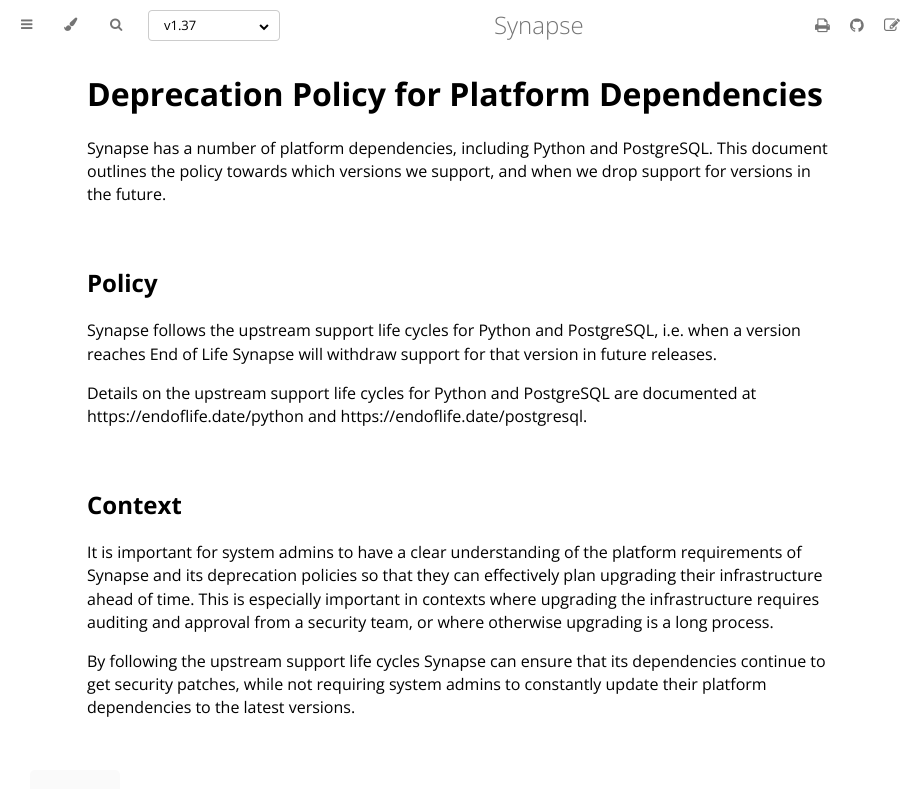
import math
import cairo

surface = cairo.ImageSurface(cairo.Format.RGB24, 923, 789)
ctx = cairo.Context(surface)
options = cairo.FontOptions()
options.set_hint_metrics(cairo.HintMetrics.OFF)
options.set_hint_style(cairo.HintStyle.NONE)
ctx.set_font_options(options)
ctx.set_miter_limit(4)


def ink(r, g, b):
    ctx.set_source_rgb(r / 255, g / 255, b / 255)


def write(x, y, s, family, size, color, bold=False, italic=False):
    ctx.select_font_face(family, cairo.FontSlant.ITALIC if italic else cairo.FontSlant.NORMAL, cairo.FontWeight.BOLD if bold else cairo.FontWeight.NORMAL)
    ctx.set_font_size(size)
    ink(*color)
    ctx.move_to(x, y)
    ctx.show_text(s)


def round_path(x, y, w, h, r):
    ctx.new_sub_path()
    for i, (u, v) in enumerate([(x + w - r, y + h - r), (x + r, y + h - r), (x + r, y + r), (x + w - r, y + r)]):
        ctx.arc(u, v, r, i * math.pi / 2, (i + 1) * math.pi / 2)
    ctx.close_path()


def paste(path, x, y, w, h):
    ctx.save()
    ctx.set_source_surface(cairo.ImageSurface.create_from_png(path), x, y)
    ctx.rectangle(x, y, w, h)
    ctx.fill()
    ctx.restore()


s1 = dict(family="Open Sans", size=13, color=(0, 0, 0))
s2 = dict(family="Open Sans Light", size=24, color=(116, 116, 116))
s3 = dict(family="Open Sans", size=32, color=(0, 0, 0), bold=True)
s4 = dict(family="Open Sans", size=16, color=(0, 0, 0))
s5 = dict(family="Open Sans", size=24, color=(0, 0, 0), bold=True)

ink(255, 255, 255)
ctx.paint()
paste("pic1.png", 21, 19, 12, 10)
paste("pic2.png", 64, 17, 14, 14)
paste("pic3.png", 110, 18, 13, 13)
round_path(148.5, 10.5, 131, 30, 3.5)
ink(204, 204, 204)
ctx.set_line_width(1)
ctx.stroke()
write(164, 30, "v1.37", **s1)
paste("pic4.png", 259, 24, 10, 7)
write(494, 34, "Synapse", **s2)
paste("pic5.png", 815, 18, 15, 15)
paste("pic6.png", 850, 18, 14, 14)
paste("pic7.png", 884, 18, 16, 13)
write(87, 106, "Deprecation Policy for Platform Dependencies", **s3)
write(87, 154, "Synapse has a number of platform dependencies, including Python and PostgreSQL. This document", **s4)
write(87, 177, "outlines the policy towards which versions we support, and when we drop support for versions in", **s4)
write(87, 200, "the future.", **s4)
write(87, 292, "Policy", **s5)
write(87, 336, "Synapse follows the upstream support life cycles for Python and PostgreSQL, i.e. when a version", **s4)
write(87, 360, "reaches End of Life Synapse will withdraw support for that version in future releases.", **s4)
write(87, 399, "Details on the upstream support life cycles for Python and PostgreSQL are documented at", **s4)
write(87, 422, "https://endoflife.date/python and https://endoflife.date/postgresql.", **s4)
write(87, 514, "Context", **s5)
write(87, 558, "It is important for system admins to have a clear understanding of the platform requirements of", **s4)
write(87, 581, "Synapse and its deprecation policies so that they can effectively plan upgrading their infrastructure", **s4)
write(87, 605, "ahead of time. This is especially important in contexts where upgrading the infrastructure requires", **s4)
write(87, 628, "auditing and approval from a security team, or where otherwise upgrading is a long process.", **s4)
write(87, 667, "By following the upstream support life cycles Synapse can ensure that its dependencies continue to", **s4)
write(87, 690, "get security patches, while not requiring system admins to constantly update their platform", **s4)
write(87, 713, "dependencies to the latest versions.", **s4)
ink(250, 250, 250)
round_path(30, 770, 90, 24, 5)
ctx.fill()
surface.write_to_png("screenshot.png")
